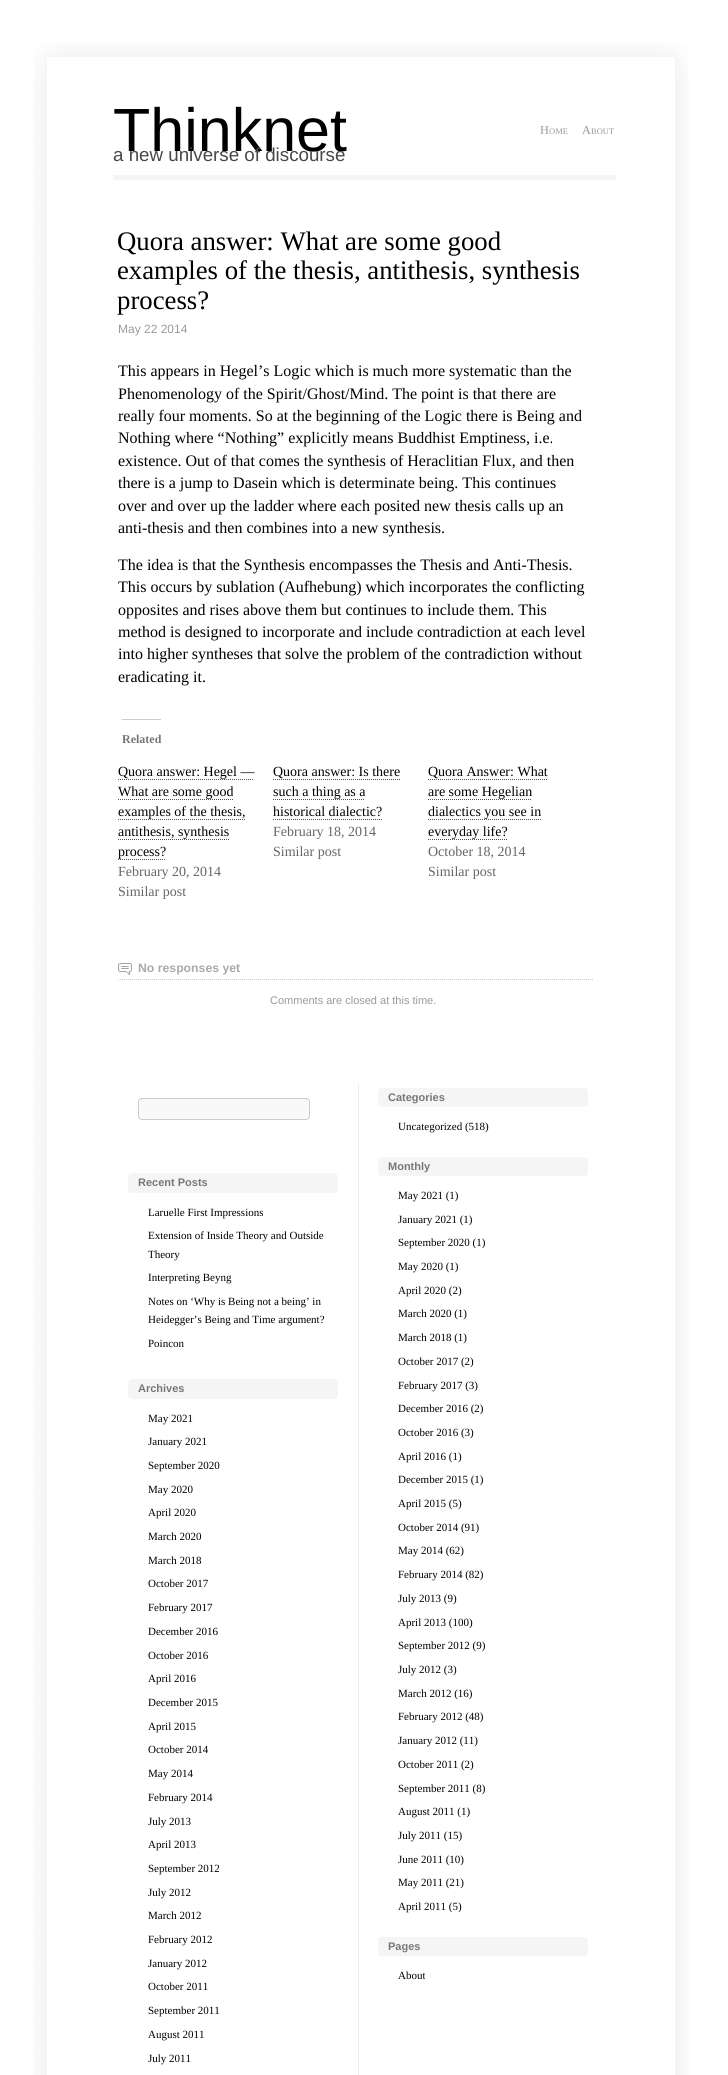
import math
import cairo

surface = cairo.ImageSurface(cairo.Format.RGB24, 728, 2075)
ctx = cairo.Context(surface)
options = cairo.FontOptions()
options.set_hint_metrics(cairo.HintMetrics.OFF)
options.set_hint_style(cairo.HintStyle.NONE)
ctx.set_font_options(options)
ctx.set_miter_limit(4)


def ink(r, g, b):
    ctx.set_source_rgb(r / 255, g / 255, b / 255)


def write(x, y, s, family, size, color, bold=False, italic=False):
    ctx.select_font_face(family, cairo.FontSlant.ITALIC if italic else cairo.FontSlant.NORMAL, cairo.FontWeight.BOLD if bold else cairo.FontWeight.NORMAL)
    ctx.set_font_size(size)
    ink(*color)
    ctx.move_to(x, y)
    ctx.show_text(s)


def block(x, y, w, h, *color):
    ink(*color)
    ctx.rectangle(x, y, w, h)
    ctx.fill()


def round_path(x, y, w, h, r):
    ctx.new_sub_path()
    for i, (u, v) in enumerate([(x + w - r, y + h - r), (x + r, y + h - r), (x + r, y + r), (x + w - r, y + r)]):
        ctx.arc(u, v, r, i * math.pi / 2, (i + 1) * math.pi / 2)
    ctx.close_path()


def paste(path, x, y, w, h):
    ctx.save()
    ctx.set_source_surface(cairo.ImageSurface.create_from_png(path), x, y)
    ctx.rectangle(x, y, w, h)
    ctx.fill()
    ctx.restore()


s1 = dict(family="Liberation Sans", size=61, color=(0, 0, 0))
s2 = dict(family="Liberation Sans", size=18.75, color=(72, 72, 72))
s3 = dict(family="Liberation Serif", size=12.25, color=(153, 153, 153))
s4 = dict(family="Liberation Serif", size=8.5, color=(153, 153, 153))
s5 = dict(family="Liberation Serif", size=26.75, color=(0, 0, 0))
s6 = dict(family="Liberation Sans", size=12, color=(153, 153, 153))
s7 = dict(family="Liberation Serif", size=16, color=(0, 0, 0))
s8 = dict(family="Liberation Serif", size=12, color=(119, 119, 119), bold=True)
s9 = dict(family="Liberation Serif", size=14, color=(0, 0, 0))
s10 = dict(family="Liberation Serif", size=14, color=(102, 102, 102))
s11 = dict(family="Liberation Sans", size=12.25, color=(170, 170, 170), bold=True)
s12 = dict(family="Liberation Sans", size=11, color=(153, 153, 153))
s13 = dict(family="Liberation Sans", size=11, color=(119, 119, 119), bold=True)
s14 = dict(family="Liberation Serif", size=11, color=(0, 0, 0))

ink(255, 255, 255)
ctx.paint()
paste("pic1.png", 34, 43, 654, 37)
paste("pic2.png", 33, 80, 656, 115)
write(113, 151, "Thinknet", **s1)
write(113, 161, "a new universe of discourse", **s2)
write(540, 134, "H", **s3)
write(549, 134, "OME", **s4)
write(582, 134, "A", **s3)
write(591, 134, "BOUT", **s4)
block(113, 175, 503, 5, 245, 245, 245)
paste("pic3.png", 33, 195, 656, 1880)
write(117, 250, "Quora answer: What are some good", **s5)
write(117, 279, "examples of the thesis, antithesis, synthesis", **s5)
write(117, 309, "process?", **s5)
write(118, 333, "May 22 2014", **s6)
write(118, 376, "This appears in Hegel’s Logic which is much more systematic than the", **s7)
write(118, 399, "Phenomenology of the Spirit/Ghost/Mind. The point is that there are", **s7)
write(118, 421, "really four moments. So at the beginning of the Logic there is Being and", **s7)
write(118, 443, "Nothing where “Nothing” explicitly means Buddhist Emptiness, i.e.", **s7)
write(118, 466, "existence. Out of that comes the synthesis of Heraclitian Flux, and then", **s7)
write(118, 488, "there is a jump to Dasein which is determinate being. This continues", **s7)
write(118, 511, "over and over up the ladder where each posited new thesis calls up an", **s7)
write(118, 533, "anti-thesis and then combines into a new synthesis.", **s7)
write(118, 570, "The idea is that the Synthesis encompasses the Thesis and Anti-Thesis.", **s7)
write(118, 592, "This occurs by sublation (Aufhebung) which incorporates the conflicting", **s7)
write(118, 615, "opposites and rises above them but continues to include them. This", **s7)
write(118, 637, "method is designed to incorporate and include contradiction at each level", **s7)
write(118, 659, "into higher syntheses that solve the problem of the contradiction without", **s7)
write(118, 682, "eradicating it.", **s7)
block(122, 719, 39, 1, 204, 204, 204)
write(122, 743, "Related", **s8)
write(118, 776, "Quora answer: Hegel —", **s9)
ctx.new_path()
ctx.move_to(118, 779.5)
ctx.line_to(254, 779.5)
ink(239, 0, 80)
ctx.set_line_width(1)
ctx.set_dash([1, 1])
ctx.stroke()
write(118, 796, "What are some good", **s9)
ctx.new_path()
ctx.move_to(118, 799.5)
ctx.line_to(233, 799.5)
ink(239, 0, 80)
ctx.stroke()
write(118, 816, "examples of the thesis,", **s9)
ctx.new_path()
ctx.move_to(118, 819.5)
ctx.line_to(245, 819.5)
ink(239, 0, 80)
ctx.stroke()
write(118, 836, "antithesis, synthesis", **s9)
ctx.new_path()
ctx.move_to(118, 839.5)
ctx.line_to(229, 839.5)
ink(239, 0, 80)
ctx.stroke()
write(118, 856, "process?", **s9)
ctx.new_path()
ctx.move_to(118, 859.5)
ctx.line_to(166, 859.5)
ink(239, 0, 80)
ctx.stroke()
write(118, 876, "February 20, 2014", **s10)
write(118, 896, "Similar post", **s10)
write(273, 776, "Quora answer: Is there", **s9)
ctx.new_path()
ctx.move_to(273, 779.5)
ctx.line_to(400, 779.5)
ink(239, 0, 80)
ctx.stroke()
write(273, 796, "such a thing as a", **s9)
ctx.new_path()
ctx.move_to(273, 799.5)
ctx.line_to(365, 799.5)
ink(239, 0, 80)
ctx.stroke()
write(273, 816, "historical dialectic?", **s9)
ctx.new_path()
ctx.move_to(273, 819.5)
ctx.line_to(382, 819.5)
ink(239, 0, 80)
ctx.stroke()
write(273, 836, "February 18, 2014", **s10)
write(273, 856, "Similar post", **s10)
write(428, 776, "Quora Answer: What", **s9)
ctx.new_path()
ctx.move_to(428, 779.5)
ctx.line_to(547, 779.5)
ink(239, 0, 80)
ctx.stroke()
write(428, 796, "are some Hegelian", **s9)
ctx.new_path()
ctx.move_to(428, 799.5)
ctx.line_to(532, 799.5)
ink(239, 0, 80)
ctx.stroke()
write(428, 816, "dialectics you see in", **s9)
ctx.new_path()
ctx.move_to(428, 819.5)
ctx.line_to(541, 819.5)
ink(239, 0, 80)
ctx.stroke()
write(428, 836, "everyday life?", **s9)
ctx.new_path()
ctx.move_to(428, 839.5)
ctx.line_to(507, 839.5)
ink(239, 0, 80)
ctx.stroke()
write(428, 856, "October 18, 2014", **s10)
write(428, 876, "Similar post", **s10)
paste("pic4.png", 118, 963, 14, 12)
ctx.new_path()
ctx.move_to(118, 979.5)
ctx.line_to(593, 979.5)
ink(204, 204, 204)
ctx.stroke()
write(138, 972, "No responses yet", **s11)
write(270, 1004, "Comments are closed at this time.", **s12)
block(358, 1083, 1, 992, 238, 238, 238)
ink(249, 249, 249)
round_path(138.5, 1098.5, 171, 21, 3.5)
ctx.fill_preserve()
ink(204, 204, 204)
ctx.set_dash([])
ctx.stroke()
ink(245, 245, 245)
round_path(128, 1173, 210, 20, 4)
ctx.fill()
write(138, 1186, "Recent Posts", **s13)
write(148, 1216, "Laruelle First Impressions", **s14)
write(148, 1239, "Extension of Inside Theory and Outside", **s14)
write(148, 1258, "Theory", **s14)
write(148, 1281, "Interpreting Beyng", **s14)
write(148, 1305, "Notes on ‘Why is Being not a being’ in", **s14)
write(148, 1323, "Heidegger’s Being and Time argument?", **s14)
write(148, 1347, "Poincon", **s14)
ink(245, 245, 245)
round_path(128, 1379, 210, 20, 4)
ctx.fill()
write(138, 1392, "Archives", **s13)
write(148, 1422, "May 2021", **s14)
write(148, 1445, "January 2021", **s14)
write(148, 1469, "September 2020", **s14)
write(148, 1493, "May 2020", **s14)
write(148, 1516, "April 2020", **s14)
write(148, 1540, "March 2020", **s14)
write(148, 1564, "March 2018", **s14)
write(148, 1587, "October 2017", **s14)
write(148, 1611, "February 2017", **s14)
write(148, 1635, "December 2016", **s14)
write(148, 1659, "October 2016", **s14)
write(148, 1682, "April 2016", **s14)
write(148, 1706, "December 2015", **s14)
write(148, 1730, "April 2015", **s14)
write(148, 1753, "October 2014", **s14)
write(148, 1777, "May 2014", **s14)
write(148, 1801, "February 2014", **s14)
write(148, 1825, "July 2013", **s14)
write(148, 1848, "April 2013", **s14)
write(148, 1872, "September 2012", **s14)
write(148, 1896, "July 2012", **s14)
write(148, 1919, "March 2012", **s14)
write(148, 1943, "February 2012", **s14)
write(148, 1967, "January 2012", **s14)
write(148, 1990, "October 2011", **s14)
write(148, 2014, "September 2011", **s14)
write(148, 2038, "August 2011", **s14)
write(148, 2062, "July 2011", **s14)
ink(245, 245, 245)
round_path(378, 1088, 210, 19, 4)
ctx.fill()
write(388, 1101, "Categories", **s13)
write(398, 1130, "Uncategorized (518)", **s14)
ink(245, 245, 245)
round_path(378, 1157, 210, 19, 4)
ctx.fill()
write(388, 1170, "Monthly", **s13)
write(398, 1199, "May 2021 (1)", **s14)
write(398, 1223, "January 2021 (1)", **s14)
write(398, 1246, "September 2020 (1)", **s14)
write(398, 1270, "May 2020 (1)", **s14)
write(398, 1294, "April 2020 (2)", **s14)
write(398, 1317, "March 2020 (1)", **s14)
write(398, 1341, "March 2018 (1)", **s14)
write(398, 1365, "October 2017 (2)", **s14)
write(398, 1389, "February 2017 (3)", **s14)
write(398, 1412, "December 2016 (2)", **s14)
write(398, 1436, "October 2016 (3)", **s14)
write(398, 1460, "April 2016 (1)", **s14)
write(398, 1483, "December 2015 (1)", **s14)
write(398, 1507, "April 2015 (5)", **s14)
write(398, 1531, "October 2014 (91)", **s14)
write(398, 1554, "May 2014 (62)", **s14)
write(398, 1578, "February 2014 (82)", **s14)
write(398, 1602, "July 2013 (9)", **s14)
write(398, 1626, "April 2013 (100)", **s14)
write(398, 1649, "September 2012 (9)", **s14)
write(398, 1673, "July 2012 (3)", **s14)
write(398, 1697, "March 2012 (16)", **s14)
write(398, 1720, "February 2012 (48)", **s14)
write(398, 1744, "January 2012 (11)", **s14)
write(398, 1768, "October 2011 (2)", **s14)
write(398, 1792, "September 2011 (8)", **s14)
write(398, 1815, "August 2011 (1)", **s14)
write(398, 1839, "July 2011 (15)", **s14)
write(398, 1863, "June 2011 (10)", **s14)
write(398, 1886, "May 2011 (21)", **s14)
write(398, 1910, "April 2011 (5)", **s14)
ink(245, 245, 245)
round_path(378, 1937, 210, 19, 4)
ctx.fill()
write(388, 1950, "Pages", **s13)
write(398, 1979, "About", **s14)
surface.write_to_png("screenshot.png")
